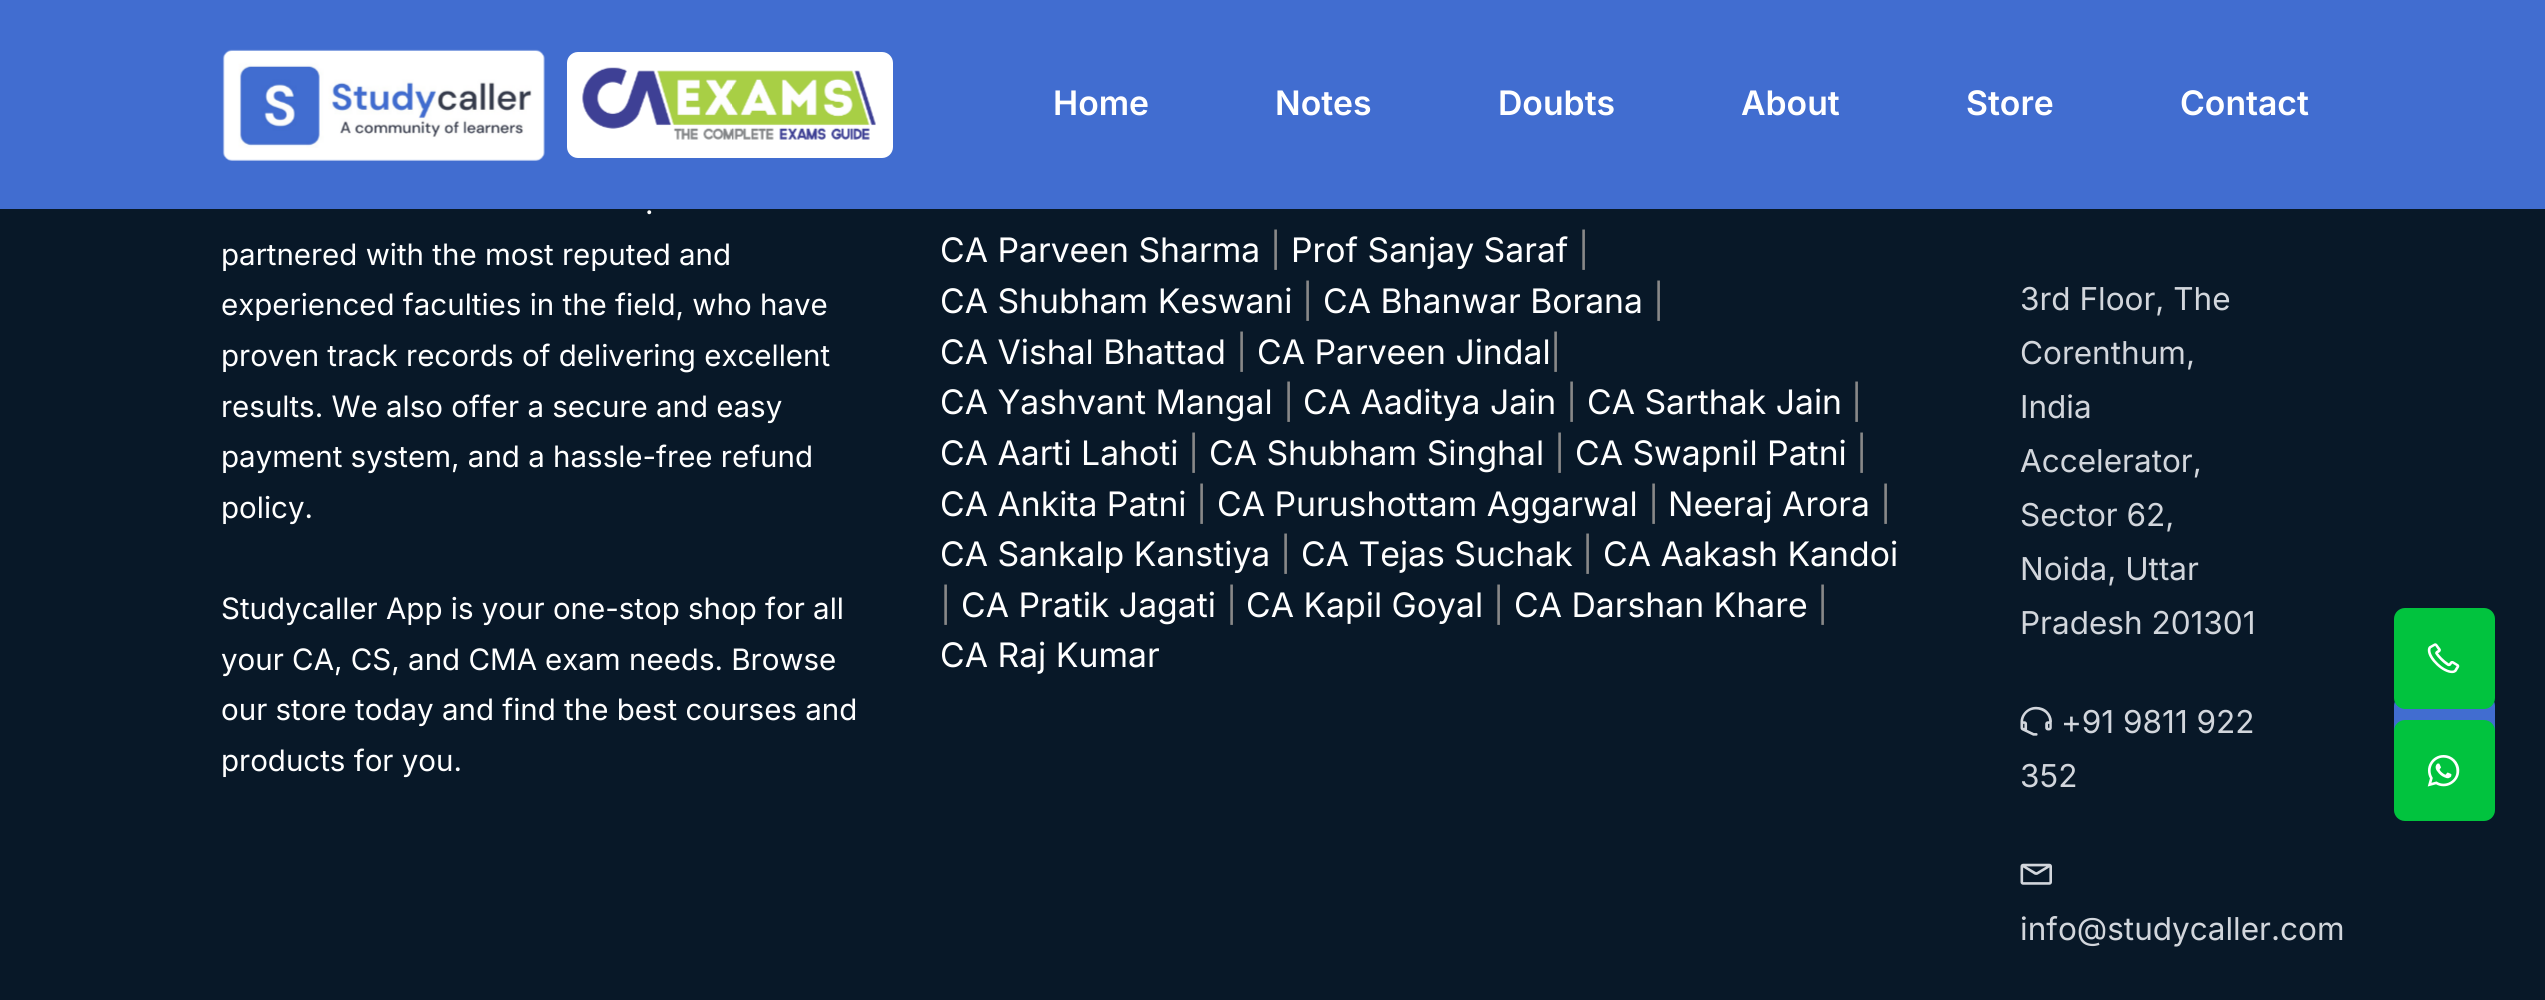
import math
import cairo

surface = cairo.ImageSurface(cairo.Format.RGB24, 2545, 1000)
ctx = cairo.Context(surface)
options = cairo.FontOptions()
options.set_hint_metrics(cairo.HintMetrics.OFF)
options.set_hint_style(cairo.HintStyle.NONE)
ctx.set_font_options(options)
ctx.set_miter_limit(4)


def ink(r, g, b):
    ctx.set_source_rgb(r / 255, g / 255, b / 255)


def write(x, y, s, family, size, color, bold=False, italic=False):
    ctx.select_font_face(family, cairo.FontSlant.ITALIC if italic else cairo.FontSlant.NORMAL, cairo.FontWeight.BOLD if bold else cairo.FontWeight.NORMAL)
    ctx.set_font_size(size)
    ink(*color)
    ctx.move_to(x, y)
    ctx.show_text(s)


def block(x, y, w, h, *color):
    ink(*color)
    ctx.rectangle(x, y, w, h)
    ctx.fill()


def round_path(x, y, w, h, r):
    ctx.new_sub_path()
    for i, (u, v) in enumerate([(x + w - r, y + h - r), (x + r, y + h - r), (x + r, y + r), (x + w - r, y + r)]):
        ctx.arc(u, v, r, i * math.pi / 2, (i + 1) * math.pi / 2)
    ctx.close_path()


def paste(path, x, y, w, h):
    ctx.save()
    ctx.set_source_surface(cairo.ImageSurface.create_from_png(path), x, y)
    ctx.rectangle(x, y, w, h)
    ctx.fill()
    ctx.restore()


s1 = dict(family="Inter SemiBold", size=33.75, color=(255, 255, 255))
s2 = dict(family="Inter", size=29.5, color=(255, 255, 255))
s3 = dict(family="Inter", size=33.75, color=(255, 255, 255))
s4 = dict(family="Inter", size=33.75, color=(136, 136, 136))
s5 = dict(family="Inter", size=31.5, color=(210, 214, 220))

ink(8, 24, 40)
ctx.paint()
block(0, 0, 2545, 209, 65, 109, 208)
paste("pic1.png", 222, 49, 323, 112)
ink(255, 255, 255)
round_path(567, 52, 326, 106, 11)
ctx.fill()
paste("pic2.png", 582, 67, 294, 73)
write(1053, 115, "Home", **s1)
write(1275, 115, "Notes", **s1)
write(1498, 115, "Doubts", **s1)
write(1741, 115, "About", **s1)
write(1966, 115, "Store", **s1)
write(2180, 115, "Contact", **s1)
write(645, 214, ".", **s2)
write(221, 265, "partnered with the most reputed and", **s2)
write(221, 315, "experienced faculties in the field, who have", **s2)
write(221, 366, "proven track records of delivering excellent", **s2)
write(221, 417, "results. We also offer a secure and easy", **s2)
write(221, 467, "payment system, and a hassle-free refund", **s2)
write(221, 518, "policy.", **s2)
write(221, 619, "Studycaller App is your one-stop shop for all", **s2)
write(221, 670, "your CA, CS, and CMA", **s2)
write(545, 670, "exam needs. Browse", **s2)
write(221, 720, "our store today and find the best courses and", **s2)
write(221, 771, "products for you.", **s2)
write(940, 262, "CA Parveen Sharma", **s3)
write(1270, 262, "|", **s4)
write(1291, 262, "Prof Sanjay Saraf", **s3)
write(1578, 262, "|", **s4)
write(940, 313, "CA Shubham Keswani", **s3)
write(1302, 313, "|", **s4)
write(1323, 313, "CA Bhanwar Borana", **s3)
write(1653, 313, "|", **s4)
write(940, 364, "CA Vishal Bhattad", **s3)
write(1236, 364, "|", **s4)
write(1257, 364, "CA Parveen Jindal", **s3)
write(1550, 364, "|", **s4)
write(940, 414, "CA Yashvant Mangal", **s3)
write(1283, 414, "|", **s4)
write(1303, 414, "CA Aaditya Jain", **s3)
write(1566, 414, "|", **s4)
write(1587, 414, "CA Sarthak Jain", **s3)
write(1851, 414, "|", **s4)
write(940, 465, "CA Aarti Lahoti", **s3)
write(1188, 465, "|", **s4)
write(1209, 465, "CA Shubham Singhal", **s3)
write(1554, 465, "|", **s4)
write(1575, 465, "CA Swapnil Patni", **s3)
write(1856, 465, "|", **s4)
write(940, 516, "CA Ankita Patni", **s3)
write(1196, 516, "|", **s4)
write(1217, 516, "CA Purushottam Aggarwal", **s3)
write(1648, 516, "|", **s4)
write(1668, 516, "Neeraj Arora", **s3)
write(1880, 516, "|", **s4)
write(940, 566, "CA Sankalp Kanstiya", **s3)
write(1280, 566, "|", **s4)
write(1301, 566, "CA Tejas Suchak", **s3)
write(1582, 566, "|", **s4)
write(1603, 566, "CA Aakash Kandoi", **s3)
write(940, 617, "|", **s4)
write(961, 617, "CA Pratik Jagati", **s3)
write(1226, 617, "|", **s4)
write(1246, 617, "CA Kapil Goyal", **s3)
write(1493, 617, "|", **s4)
write(1514, 617, "CA Darshan Khare", **s3)
write(1817, 617, "|", **s4)
write(940, 667, "CA Raj Kumar", **s3)
write(2020, 310, "3rd Floor, The", **s5)
write(2020, 364, "Corenthum,", **s5)
write(2020, 418, "India", **s5)
write(2020, 472, "Accelerator,", **s5)
write(2020, 526, "Sector 62,", **s5)
write(2020, 580, "Noida, Uttar", **s5)
write(2020, 634, "Pradesh 201301", **s5)
paste("pic3.png", 2020, 706, 32, 30)
write(2061, 733, "+91 9811 922", **s5)
write(2020, 787, "352", **s5)
paste("pic4.png", 2020, 863, 32, 22)
write(2020, 940, "info@studycaller.com", **s5)
ink(65, 109, 208)
round_path(2394, 695, 101, 102, 11)
ctx.fill()
ink(1, 195, 62)
round_path(2394, 608, 101, 101, 11)
ctx.fill()
paste("pic5.png", 2427, 643, 33, 31)
round_path(2394, 720, 101, 101, 11)
ctx.fill()
paste("pic6.png", 2427, 755, 33, 32)
surface.write_to_png("screenshot.png")
